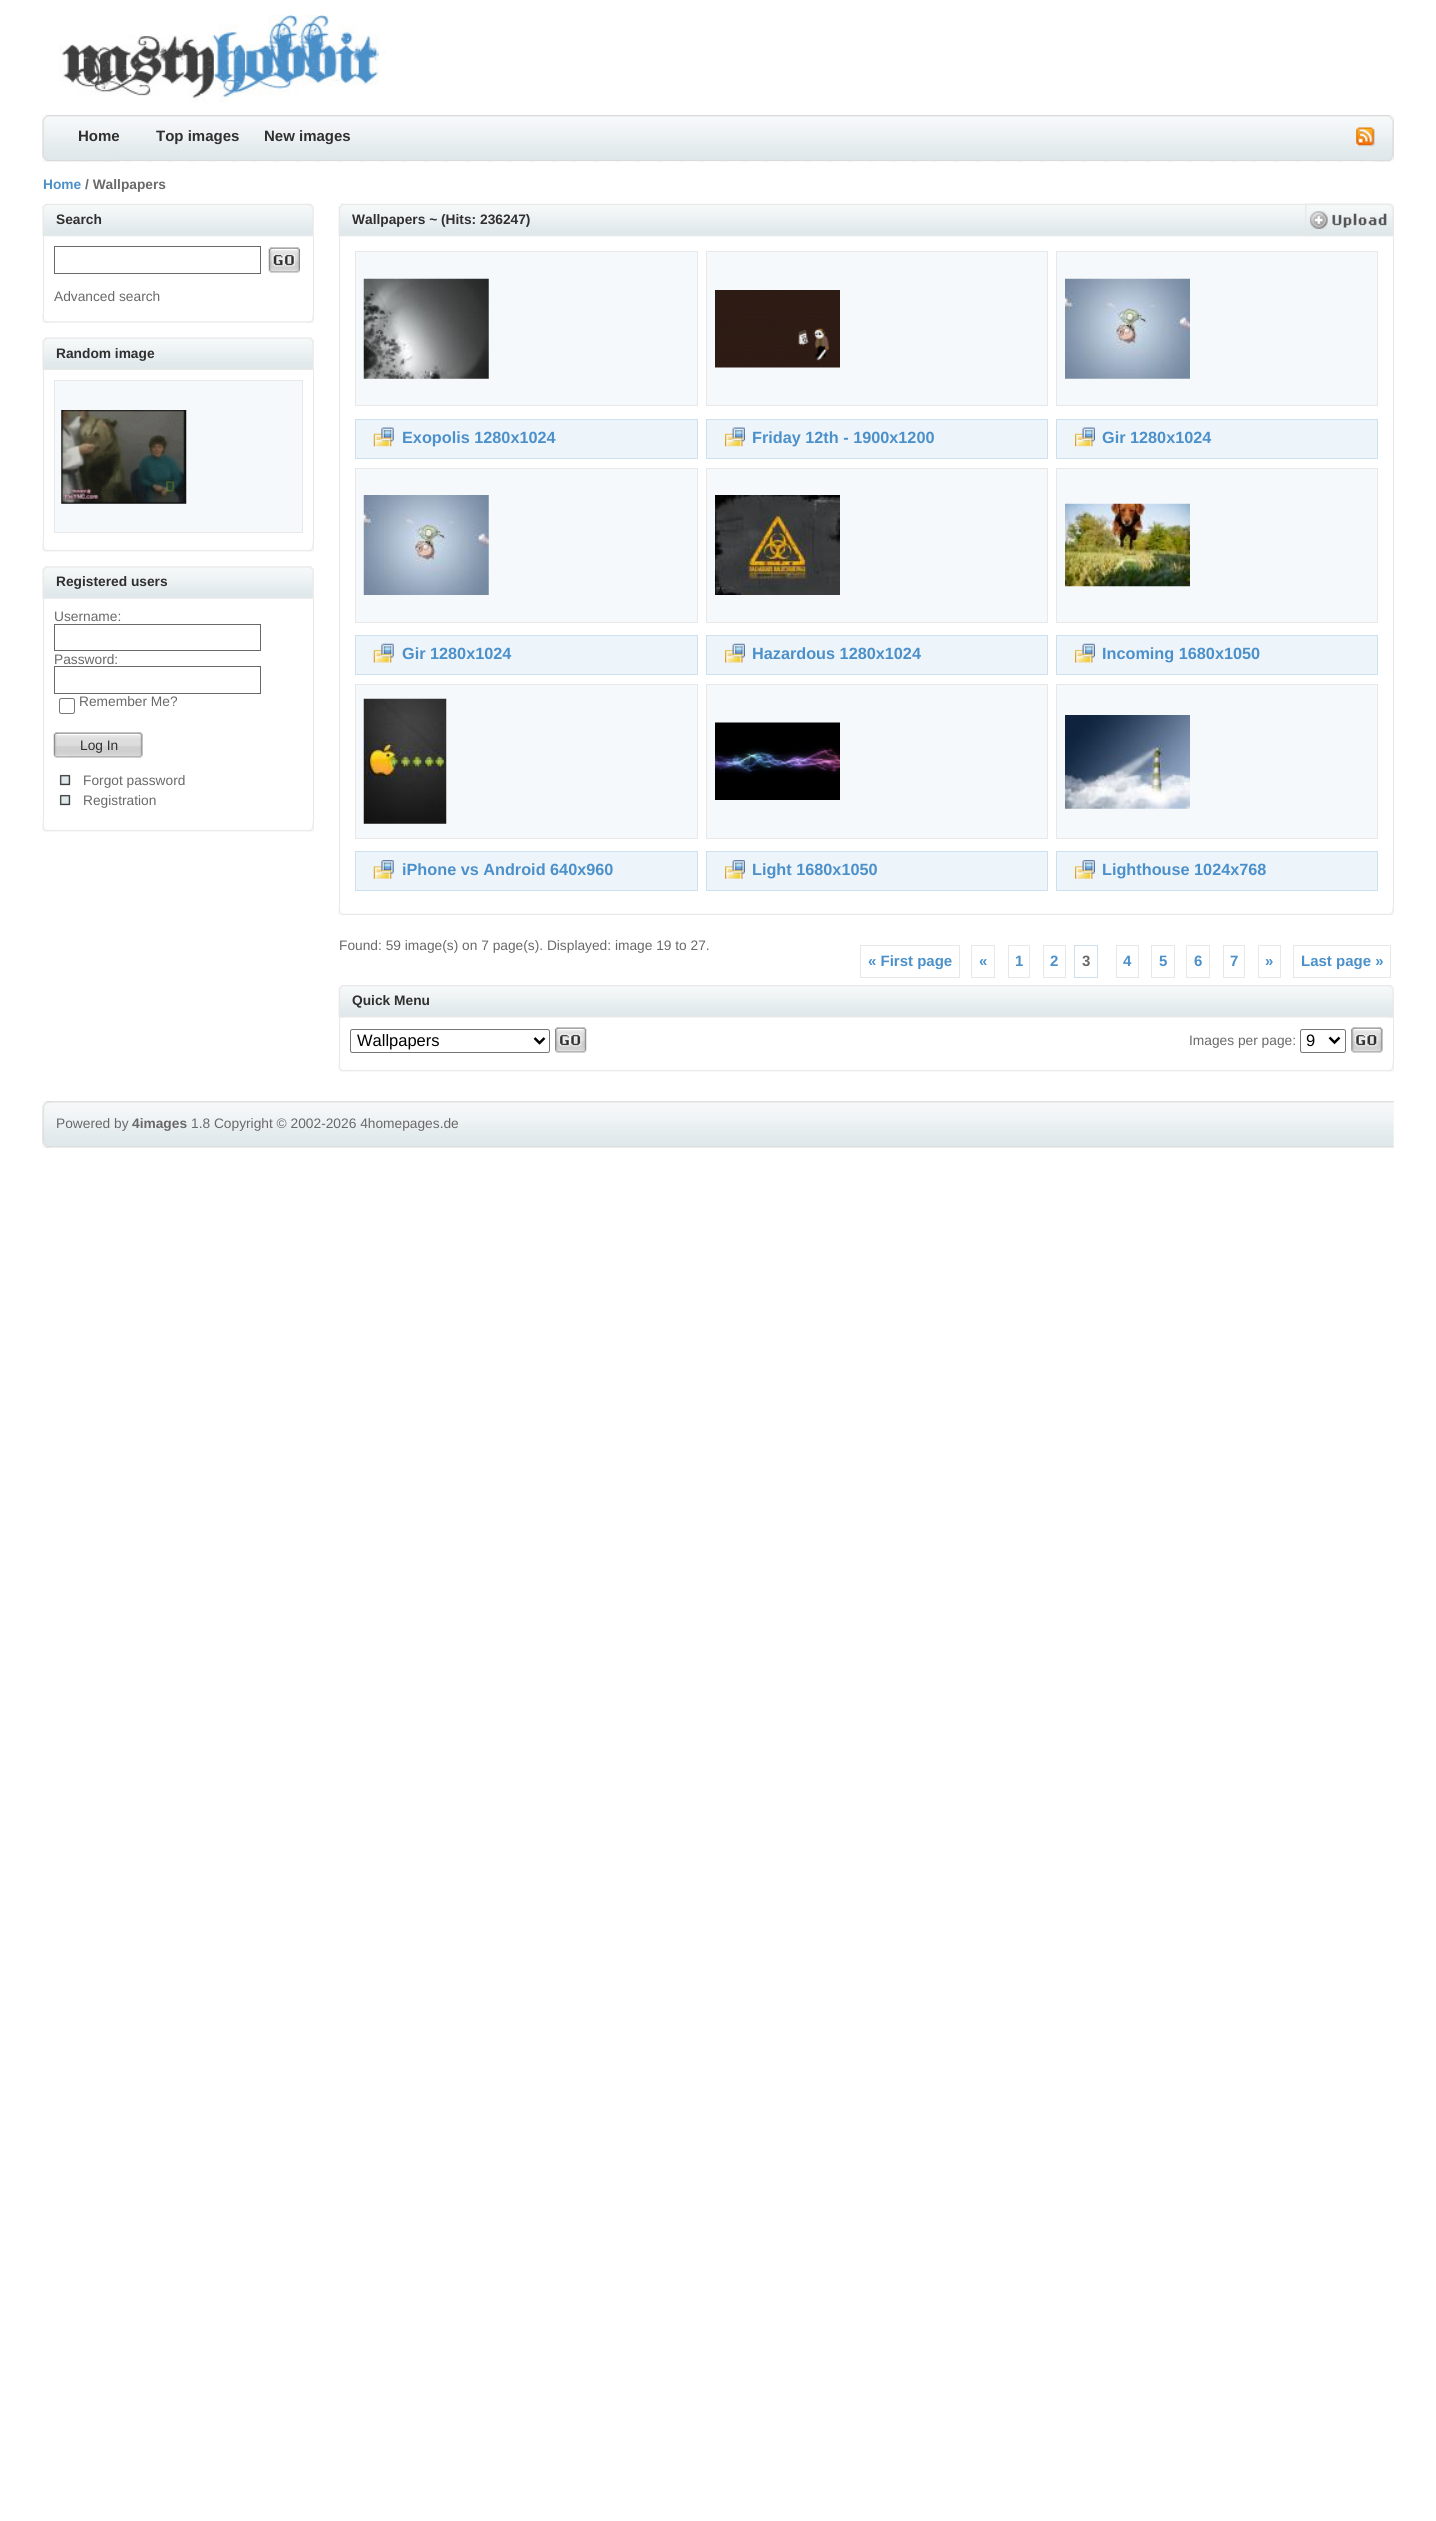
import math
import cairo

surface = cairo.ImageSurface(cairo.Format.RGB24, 1436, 2521)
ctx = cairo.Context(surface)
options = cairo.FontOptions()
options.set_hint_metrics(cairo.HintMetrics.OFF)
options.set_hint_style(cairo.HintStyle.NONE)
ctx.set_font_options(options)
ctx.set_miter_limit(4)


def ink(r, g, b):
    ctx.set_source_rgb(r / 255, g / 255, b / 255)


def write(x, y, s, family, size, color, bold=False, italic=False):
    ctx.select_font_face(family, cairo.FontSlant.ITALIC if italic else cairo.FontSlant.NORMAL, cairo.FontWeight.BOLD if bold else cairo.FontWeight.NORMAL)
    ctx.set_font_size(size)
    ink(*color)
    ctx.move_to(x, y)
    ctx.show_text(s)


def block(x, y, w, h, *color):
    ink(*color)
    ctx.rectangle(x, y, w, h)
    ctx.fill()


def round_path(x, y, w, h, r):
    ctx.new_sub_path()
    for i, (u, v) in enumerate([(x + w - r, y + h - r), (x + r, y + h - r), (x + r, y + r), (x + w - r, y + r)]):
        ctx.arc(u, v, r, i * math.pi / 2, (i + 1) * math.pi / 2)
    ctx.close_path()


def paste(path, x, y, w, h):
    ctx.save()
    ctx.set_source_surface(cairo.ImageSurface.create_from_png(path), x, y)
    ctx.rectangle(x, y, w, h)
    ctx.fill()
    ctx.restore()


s1 = dict(family="Liberation Sans", size=15, color=(48, 48, 48), bold=True)
s2 = dict(family="Liberation Sans", size=13.75, color=(76, 144, 202), bold=True)
s3 = dict(family="Liberation Sans", size=13.75, color=(105, 105, 105), bold=True)
s4 = dict(family="Liberation Sans", size=13.75, color=(48, 48, 48), bold=True)
s5 = dict(family="Liberation Sans", size=13.75, color=(105, 105, 105))
s6 = dict(family="Liberation Sans", size=13.75, color=(48, 48, 48))
s7 = dict(family="Liberation Sans", size=16.25, color=(76, 144, 202), bold=True)
s8 = dict(family="Liberation Sans", size=15, color=(76, 144, 202), bold=True)
s9 = dict(family="Liberation Sans", size=15, color=(105, 105, 105), bold=True)
s10 = dict(family="Liberation Sans", size=16.5, color=(0, 0, 0))

ink(255, 255, 255)
ctx.paint()
paste("pic1.png", 59, 15, 326, 88)
paste("pic2.png", 42, 115, 1352, 47)
paste("pic3.png", 42, 115, 77, 47)
write(78, 141, "Home", **s1)
write(156, 141, "Top images", **s1)
write(264, 141, "New images", **s1)
paste("pic4.png", 1372, 115, 22, 47)
paste("pic5.png", 1356, 127, 19, 20)
write(43, 189, "Home", **s2)
write(85, 189, "/ Wallpapers", **s3)
paste("pic6.png", 42, 203, 272, 34)
write(56, 224, "Search", **s4)
block(313, 236, 1, 78, 232, 232, 232)
block(43, 236, 1, 78, 232, 232, 232)
ctx.rectangle(54.5, 246.5, 206, 27)
ink(105, 105, 105)
ctx.set_line_width(1)
ctx.stroke()
paste("pic7.png", 268, 247, 32, 26)
write(54, 301, "Advanced search", **s5)
paste("pic8.png", 42, 313, 272, 10)
paste("pic9.png", 42, 314, 8, 9)
paste("pic10.png", 306, 314, 8, 9)
paste("pic11.png", 42, 337, 272, 33)
write(56, 358, "Random image", **s4)
block(313, 370, 1, 173, 232, 232, 232)
block(43, 370, 1, 173, 232, 232, 232)
ink(245, 249, 252)
ctx.rectangle(54.5, 380.5, 248, 152)
ctx.fill_preserve()
ink(232, 232, 232)
ctx.stroke()
paste("pic12.png", 61, 410, 126, 94)
paste("pic13.png", 42, 542, 272, 10)
paste("pic14.png", 42, 542, 8, 10)
paste("pic15.png", 307, 542, 7, 10)
paste("pic16.png", 42, 566, 272, 33)
write(56, 586, "Registered users", **s4)
block(313, 599, 1, 224, 232, 232, 232)
block(43, 599, 1, 224, 232, 232, 232)
write(54, 621, "Username:", **s5)
ctx.rectangle(54.5, 624.5, 206, 26)
ctx.stroke()
write(54, 664, "Password:", **s5)
ctx.rectangle(54.5, 666.5, 206, 27)
ctx.stroke()
round_path(59.5, 698.5, 15, 15, 2)
ink(118, 118, 118)
ctx.stroke()
write(79, 706, "Remember Me?", **s5)
paste("pic17.png", 53, 732, 90, 26)
write(80, 750, "Log In", **s6)
paste("pic18.png", 59, 774, 12, 12)
write(83, 785, "Forgot password", **s5)
paste("pic18.png", 59, 794, 12, 12)
write(83, 805, "Registration", **s5)
paste("pic13.png", 42, 822, 272, 10)
paste("pic14.png", 42, 822, 8, 10)
paste("pic15.png", 307, 822, 7, 10)
paste("pic19.png", 338, 203, 1056, 34)
paste("pic20.png", 338, 203, 5, 34)
write(352, 224, "Wallpapers ~ (Hits: 236247)", **s4)
paste("pic21.png", 1393, 204, 1, 25)
block(1393, 236, 1, 670, 232, 232, 232)
paste("pic22.png", 1305, 203, 89, 34)
block(339, 236, 1, 670, 232, 232, 232)
ink(245, 249, 252)
ctx.rectangle(355.5, 251.5, 342, 154)
ctx.fill_preserve()
ink(232, 232, 232)
ctx.stroke()
paste("pic23.png", 363, 278, 126, 101)
ink(237, 244, 250)
ctx.rectangle(355.5, 419.5, 342, 39)
ctx.fill_preserve()
ink(205, 224, 240)
ctx.stroke()
paste("pic24.png", 373, 427, 21, 20)
write(402, 443, "Exopolis 1280x1024", **s7)
ink(245, 249, 252)
ctx.rectangle(706.5, 251.5, 341, 154)
ctx.fill_preserve()
ink(232, 232, 232)
ctx.stroke()
paste("pic25.png", 715, 290, 125, 78)
ink(237, 244, 250)
ctx.rectangle(706.5, 419.5, 341, 39)
ctx.fill_preserve()
ink(205, 224, 240)
ctx.stroke()
paste("pic26.png", 725, 427, 20, 20)
write(752, 443, "Friday 12th - 1900x1200", **s7)
ink(245, 249, 252)
ctx.rectangle(1056.5, 251.5, 321, 154)
ctx.fill_preserve()
ink(232, 232, 232)
ctx.stroke()
paste("pic27.png", 1065, 278, 125, 101)
ink(237, 244, 250)
ctx.rectangle(1056.5, 419.5, 321, 39)
ctx.fill_preserve()
ink(205, 224, 240)
ctx.stroke()
paste("pic28.png", 1075, 427, 20, 20)
write(1102, 443, "Gir 1280x1024", **s7)
ink(245, 249, 252)
ctx.rectangle(355.5, 468.5, 342, 154)
ctx.fill_preserve()
ink(232, 232, 232)
ctx.stroke()
paste("pic29.png", 363, 495, 126, 100)
ink(237, 244, 250)
ctx.rectangle(355.5, 635.5, 342, 39)
ctx.fill_preserve()
ink(205, 224, 240)
ctx.stroke()
paste("pic30.png", 373, 643, 21, 20)
write(402, 659, "Gir 1280x1024", **s7)
ink(245, 249, 252)
ctx.rectangle(706.5, 468.5, 341, 154)
ctx.fill_preserve()
ink(232, 232, 232)
ctx.stroke()
paste("pic31.png", 715, 495, 125, 100)
ink(237, 244, 250)
ctx.rectangle(706.5, 635.5, 341, 39)
ctx.fill_preserve()
ink(205, 224, 240)
ctx.stroke()
paste("pic32.png", 725, 643, 20, 20)
write(752, 659, "Hazardous 1280x1024", **s7)
ink(245, 249, 252)
ctx.rectangle(1056.5, 468.5, 321, 154)
ctx.fill_preserve()
ink(232, 232, 232)
ctx.stroke()
paste("pic33.png", 1065, 503, 125, 84)
ink(237, 244, 250)
ctx.rectangle(1056.5, 635.5, 321, 39)
ctx.fill_preserve()
ink(205, 224, 240)
ctx.stroke()
paste("pic34.png", 1075, 643, 20, 20)
write(1102, 659, "Incoming 1680x1050", **s7)
ink(245, 249, 252)
ctx.rectangle(355.5, 684.5, 342, 154)
ctx.fill_preserve()
ink(232, 232, 232)
ctx.stroke()
paste("pic35.png", 363, 698, 84, 126)
ink(237, 244, 250)
ctx.rectangle(355.5, 851.5, 342, 39)
ctx.fill_preserve()
ink(205, 224, 240)
ctx.stroke()
paste("pic36.png", 373, 860, 21, 19)
write(402, 875, "iPhone vs Android 640x960", **s7)
ink(245, 249, 252)
ctx.rectangle(706.5, 684.5, 341, 154)
ctx.fill_preserve()
ink(232, 232, 232)
ctx.stroke()
paste("pic37.png", 715, 722, 125, 78)
ink(237, 244, 250)
ctx.rectangle(706.5, 851.5, 341, 39)
ctx.fill_preserve()
ink(205, 224, 240)
ctx.stroke()
paste("pic38.png", 725, 860, 20, 19)
write(752, 875, "Light 1680x1050", **s7)
ink(245, 249, 252)
ctx.rectangle(1056.5, 684.5, 321, 154)
ctx.fill_preserve()
ink(232, 232, 232)
ctx.stroke()
paste("pic39.png", 1065, 715, 125, 94)
ink(237, 244, 250)
ctx.rectangle(1056.5, 851.5, 321, 39)
ctx.fill_preserve()
ink(205, 224, 240)
ctx.stroke()
paste("pic40.png", 1075, 860, 20, 19)
write(1102, 875, "Lighthouse 1024x768", **s7)
paste("pic41.png", 338, 913, 1056, 2)
paste("pic42.png", 338, 906, 4, 9)
paste("pic43.png", 1391, 906, 3, 9)
write(339, 950, "Found: 59 image(s) on 7 page(s). Displayed: image 19 to 27.", **s5)
ctx.rectangle(860.5, 945.5, 99, 32)
ink(232, 232, 232)
ctx.stroke()
write(868, 966, "« First page", **s8)
ctx.rectangle(971.5, 945.5, 23, 32)
ink(232, 232, 232)
ctx.stroke()
write(979, 966, "«", **s8)
ctx.rectangle(1008.5, 945.5, 21, 32)
ink(232, 232, 232)
ctx.stroke()
write(1015, 966, "1", **s8)
ctx.rectangle(1043.5, 945.5, 22, 32)
ink(232, 232, 232)
ctx.stroke()
write(1050, 966, "2", **s8)
ctx.rectangle(1074.5, 945.5, 23, 32)
ink(205, 224, 240)
ctx.stroke()
write(1082, 966, "3", **s9)
ctx.rectangle(1116.5, 945.5, 22, 32)
ink(232, 232, 232)
ctx.stroke()
write(1123, 966, "4", **s8)
ctx.rectangle(1151.5, 945.5, 23, 32)
ink(232, 232, 232)
ctx.stroke()
write(1159, 966, "5", **s8)
ctx.rectangle(1186.5, 945.5, 23, 32)
ink(232, 232, 232)
ctx.stroke()
write(1194, 966, "6", **s8)
ctx.rectangle(1223.5, 945.5, 21, 32)
ink(232, 232, 232)
ctx.stroke()
write(1230, 966, "7", **s8)
ctx.rectangle(1258.5, 945.5, 22, 32)
ink(232, 232, 232)
ctx.stroke()
write(1265, 966, "»", **s8)
ctx.rectangle(1293.5, 945.5, 97, 32)
ink(232, 232, 232)
ctx.stroke()
write(1301, 966, "Last page »", **s8)
paste("pic44.png", 338, 985, 1056, 33)
paste("pic45.png", 338, 985, 6, 33)
write(352, 1005, "Quick Menu", **s4)
paste("pic46.png", 1389, 985, 5, 33)
block(1393, 1018, 1, 45, 232, 232, 232)
block(339, 1018, 1, 45, 232, 232, 232)
round_path(350.5, 1029.5, 199, 23, 2)
ink(118, 118, 118)
ctx.stroke()
ctx.new_path()
ctx.move_to(534.5, 1038)
ctx.line_to(539.5, 1043)
ctx.line_to(544.5, 1038)
ink(0, 0, 0)
ctx.set_line_width(2.5)
ctx.stroke()
write(357, 1046, "Wallpapers", **s10)
paste("pic47.png", 555, 1027, 32, 26)
write(1189, 1045, "Images per page:", **s5)
round_path(1300.5, 1029.5, 45, 23, 2)
ink(118, 118, 118)
ctx.set_line_width(1)
ctx.stroke()
ctx.new_path()
ctx.move_to(1329.5, 1037.5)
ctx.line_to(1334.5, 1042.5)
ctx.line_to(1339.5, 1037.5)
ink(0, 0, 0)
ctx.set_line_width(2.5)
ctx.stroke()
write(1306, 1046, "9", **s10)
paste("pic48.png", 1351, 1027, 32, 26)
paste("pic49.png", 338, 1062, 1056, 10)
paste("pic50.png", 338, 1062, 8, 10)
paste("pic15.png", 1387, 1062, 7, 10)
paste("pic51.png", 42, 1101, 1352, 47)
paste("pic52.png", 42, 1101, 9, 47)
write(56, 1128, "Powered by", **s5)
write(132, 1128, "4images", **s3)
write(191, 1128, "1.8 Copyright © 2002-2026 4homepages.de", **s5)
surface.write_to_png("screenshot.png")
